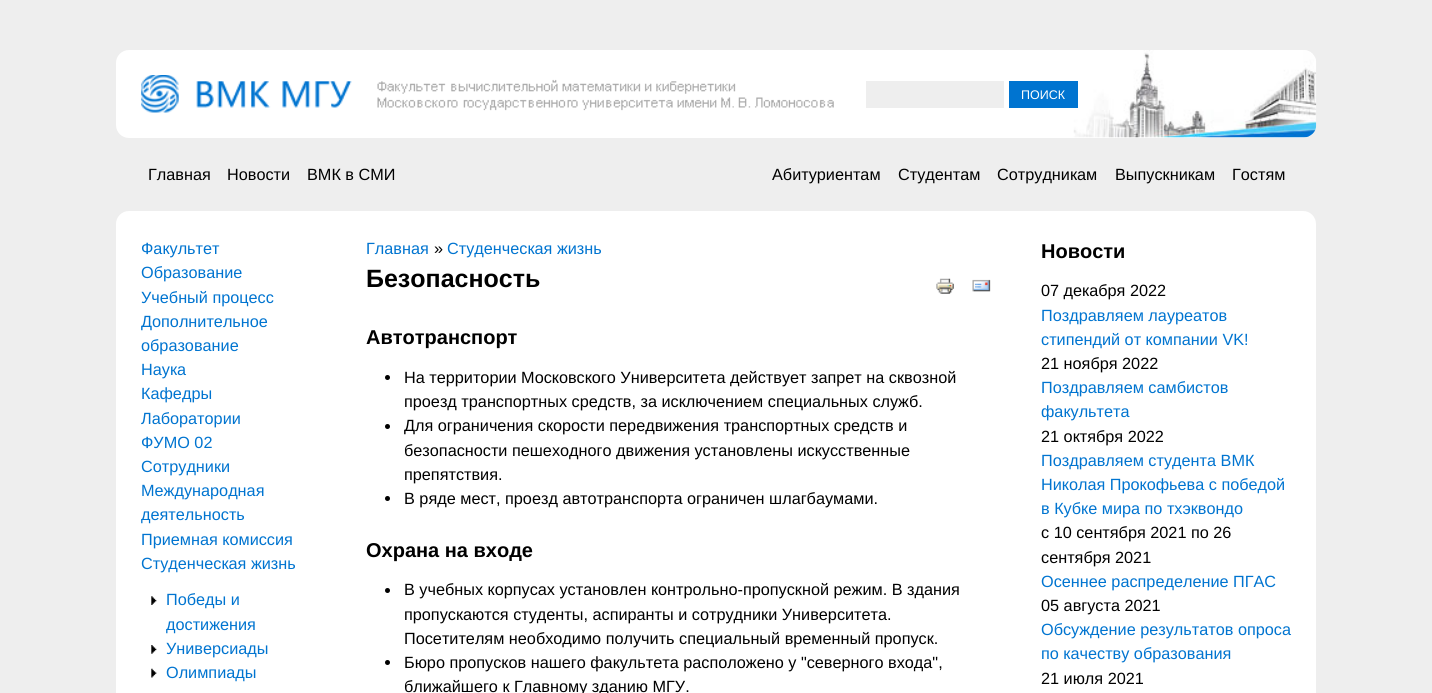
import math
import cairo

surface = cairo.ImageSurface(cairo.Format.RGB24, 1432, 693)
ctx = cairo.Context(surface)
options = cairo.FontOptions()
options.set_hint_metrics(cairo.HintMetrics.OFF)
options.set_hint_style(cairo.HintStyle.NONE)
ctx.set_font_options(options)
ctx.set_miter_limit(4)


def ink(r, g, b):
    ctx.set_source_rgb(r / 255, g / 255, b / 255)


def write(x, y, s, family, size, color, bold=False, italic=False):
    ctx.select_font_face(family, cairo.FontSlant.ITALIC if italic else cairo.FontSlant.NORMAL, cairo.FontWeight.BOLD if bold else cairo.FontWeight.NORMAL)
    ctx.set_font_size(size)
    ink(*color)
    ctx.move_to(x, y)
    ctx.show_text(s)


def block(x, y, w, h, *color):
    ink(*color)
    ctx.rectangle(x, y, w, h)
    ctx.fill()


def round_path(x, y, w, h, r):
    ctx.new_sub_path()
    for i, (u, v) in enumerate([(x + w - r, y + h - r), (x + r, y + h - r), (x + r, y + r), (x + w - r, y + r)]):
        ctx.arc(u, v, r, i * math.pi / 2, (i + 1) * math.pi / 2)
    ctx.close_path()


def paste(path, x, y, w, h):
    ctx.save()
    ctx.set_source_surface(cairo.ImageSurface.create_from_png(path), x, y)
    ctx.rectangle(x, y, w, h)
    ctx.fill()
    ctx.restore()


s1 = dict(family="Liberation Sans", size=12.5, color=(255, 255, 255))
s2 = dict(family="Liberation Sans", size=16.25, color=(0, 0, 0))
s3 = dict(family="Liberation Sans", size=16.25, color=(0, 116, 208))
s4 = dict(family="Liberation Sans", size=25, color=(0, 0, 0), bold=True)
s5 = dict(family="Liberation Sans", size=20, color=(0, 0, 0), bold=True)

ink(238, 238, 238)
ctx.paint()
ink(255, 255, 255)
round_path(116, 50, 1200, 88, 13)
ctx.fill()
paste("pic1.png", 1073, 50, 244, 88)
paste("pic2.png", 141, 75, 693, 38)
block(866, 81, 138, 27, 238, 238, 238)
block(1009, 81, 69, 27, 0, 116, 208)
write(1021, 99, "ПОИСК", **s1)
write(148, 180, "Главная", **s2)
write(227, 180, "Новости", **s2)
write(307, 180, "ВМК в СМИ", **s2)
write(772, 180, "Абитуриентам", **s2)
write(898, 180, "Студентам", **s2)
write(997, 180, "Сотрудникам", **s2)
write(1115, 180, "Выпускникам", **s2)
write(1232, 180, "Гостям", **s2)
ink(255, 255, 255)
round_path(116, 211, 1200, 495, 13)
ctx.fill()
write(141, 254, "Факультет", **s3)
write(141, 278, "Образование", **s3)
write(141, 303, "Учебный процесс", **s3)
write(141, 327, "Дополнительное", **s3)
write(141, 351, "образование", **s3)
write(141, 375, "Наука", **s3)
write(141, 399, "Кафедры", **s3)
write(141, 424, "Лаборатории", **s3)
write(141, 448, "ФУМО 02", **s3)
write(141, 472, "Сотрудники", **s3)
write(141, 496, "Международная", **s3)
write(141, 520, "деятельность", **s3)
write(141, 545, "Приемная комиссия", **s3)
write(141, 569, "Студенческая жизнь", **s3)
paste("pic3.png", 151, 596, 6, 9)
write(166, 605, "Победы и", **s3)
write(166, 630, "достижения", **s3)
paste("pic4.png", 151, 645, 6, 9)
write(166, 654, "Универсиады", **s3)
paste("pic5.png", 151, 668, 6, 10)
write(166, 678, "Олимпиады", **s3)
write(366, 254, "Главная", **s3)
write(434, 254, "»", **s2)
write(447, 254, "Студенческая жизнь", **s3)
write(366, 287, "Безопасность", **s4)
paste("pic6.png", 936, 278, 18, 16)
paste("pic7.png", 972, 279, 19, 13)
write(366, 344, "Автотранспорт", **s5)
ctx.new_path()
ctx.arc(387.5, 377.5, 2.5, 0, 2 * math.pi)
ctx.fill()
write(404, 383, "На территории Московского Университета действует запрет на сквозной", **s2)
write(404, 407, "проезд транспортных средств, за исключением специальных служб.", **s2)
ctx.new_path()
ctx.arc(387.5, 426.5, 2.5, 0, 2 * math.pi)
ctx.fill()
write(404, 431, "Для ограничения скорости передвижения транспортных средств и", **s2)
write(404, 456, "безопасности пешеходного движения установлены искусственные", **s2)
write(404, 480, "препятствия.", **s2)
ctx.new_path()
ctx.arc(387.5, 498.5, 2.5, 0, 2 * math.pi)
ctx.fill()
write(404, 504, "В ряде мест, проезд автотранспорта ограничен шлагбаумами.", **s2)
write(366, 557, "Охрана на входе", **s5)
ctx.new_path()
ctx.arc(387.5, 590.5, 2.5, 0, 2 * math.pi)
ctx.fill()
write(404, 595, "В учебных корпусах установлен контрольно-пропускной режим. В здания", **s2)
write(404, 620, "пропускаются студенты, аспиранты и сотрудники Университета.", **s2)
write(404, 644, "Посетителям необходимо получить специальный временный пропуск.", **s2)
ctx.new_path()
ctx.arc(387.5, 662.5, 2.5, 0, 2 * math.pi)
ctx.fill()
write(404, 668, "Бюро пропусков нашего факультета расположено у \"северного входа\",", **s2)
write(404, 692, "ближайшего к Главному зданию МГУ.", **s2)
write(1041, 258, "Новости", **s5)
write(1041, 296, "07 декабря 2022", **s2)
write(1041, 321, "Поздравляем лауреатов", **s3)
write(1041, 345, "стипендий от компании VK!", **s3)
write(1041, 369, "21 ноября 2022", **s2)
write(1041, 393, "Поздравляем самбистов", **s3)
write(1041, 417, "факультета", **s3)
write(1041, 442, "21 октября 2022", **s2)
write(1041, 466, "Поздравляем студента ВМК", **s3)
write(1041, 490, "Николая Прокофьева с победой", **s3)
write(1041, 514, "в Кубке мира по тхэквондо", **s3)
write(1041, 538, "с 10 сентября 2021 по 26", **s2)
write(1041, 563, "сентября 2021", **s2)
write(1041, 587, "Осеннее распределение ПГАС", **s3)
write(1041, 611, "05 августа 2021", **s2)
write(1041, 635, "Обсуждение результатов опроса", **s3)
write(1041, 659, "по качеству образования", **s3)
write(1041, 684, "21 июля 2021", **s2)
surface.write_to_png("screenshot.png")
